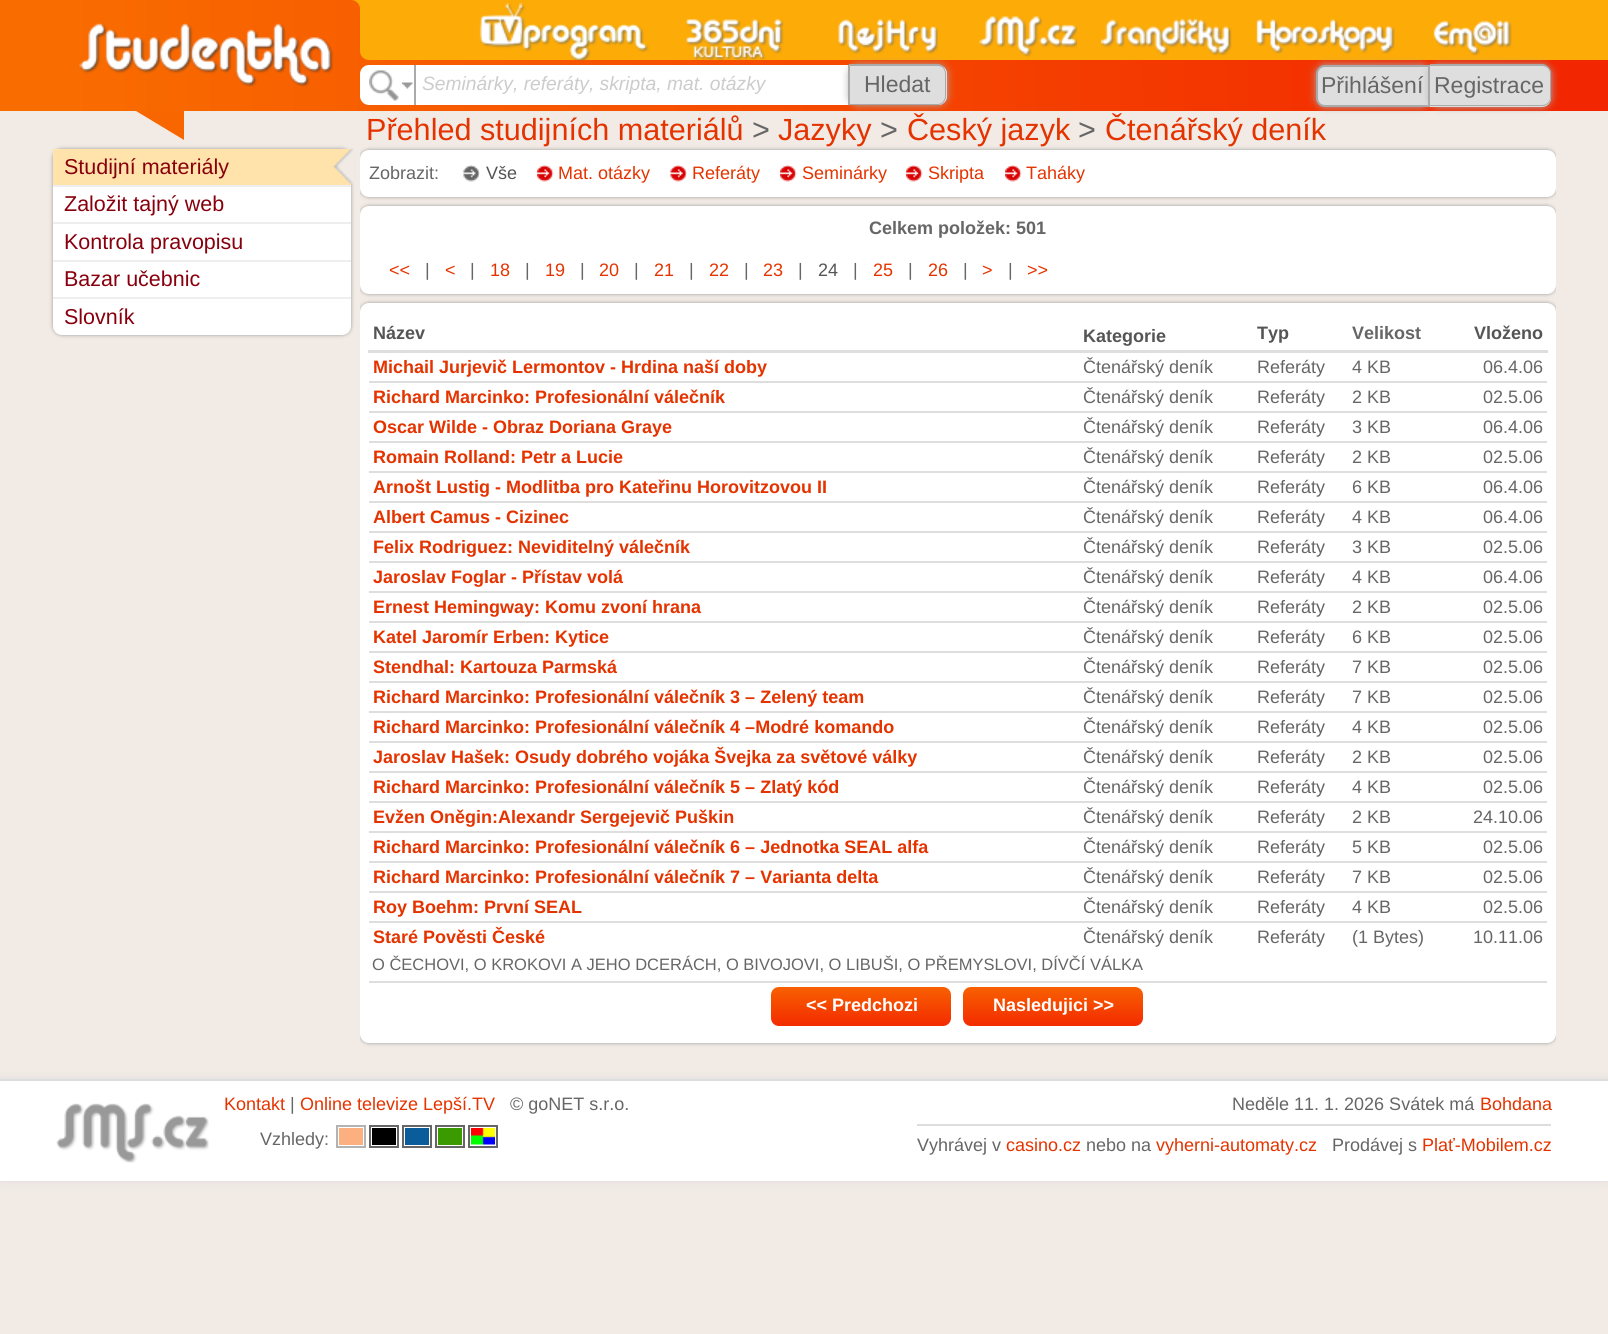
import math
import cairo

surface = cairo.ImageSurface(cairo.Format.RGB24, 1608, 1334)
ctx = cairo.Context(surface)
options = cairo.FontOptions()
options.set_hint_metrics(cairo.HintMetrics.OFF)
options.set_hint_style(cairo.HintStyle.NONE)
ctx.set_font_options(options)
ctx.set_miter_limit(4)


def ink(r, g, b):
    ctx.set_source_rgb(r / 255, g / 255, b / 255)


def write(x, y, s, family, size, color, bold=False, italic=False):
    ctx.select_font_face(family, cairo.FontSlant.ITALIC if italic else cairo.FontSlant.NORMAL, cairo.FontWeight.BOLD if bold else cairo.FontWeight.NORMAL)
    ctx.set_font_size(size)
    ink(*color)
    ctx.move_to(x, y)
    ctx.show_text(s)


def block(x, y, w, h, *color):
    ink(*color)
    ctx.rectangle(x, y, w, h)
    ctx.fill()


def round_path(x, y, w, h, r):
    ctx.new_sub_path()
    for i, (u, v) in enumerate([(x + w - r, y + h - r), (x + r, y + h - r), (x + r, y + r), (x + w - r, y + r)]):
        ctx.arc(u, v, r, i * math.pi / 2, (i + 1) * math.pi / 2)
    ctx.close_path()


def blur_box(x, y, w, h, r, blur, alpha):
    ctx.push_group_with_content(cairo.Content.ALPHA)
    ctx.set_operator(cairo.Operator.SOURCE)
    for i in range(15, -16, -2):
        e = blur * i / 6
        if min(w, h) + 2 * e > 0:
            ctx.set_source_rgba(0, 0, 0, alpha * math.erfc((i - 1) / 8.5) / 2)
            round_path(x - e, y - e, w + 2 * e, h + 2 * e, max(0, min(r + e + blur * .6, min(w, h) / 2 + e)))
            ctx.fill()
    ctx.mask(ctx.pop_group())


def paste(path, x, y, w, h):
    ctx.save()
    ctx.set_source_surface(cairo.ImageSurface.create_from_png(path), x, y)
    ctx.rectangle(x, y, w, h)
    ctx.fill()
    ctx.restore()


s1 = dict(family="Liberation Sans", size=19.25, color=(204, 204, 204), italic=True)
s2 = dict(family="Liberation Sans", size=23, color=(102, 102, 102))
s3 = dict(family="Liberation Sans", size=21.5, color=(136, 0, 13))
s4 = dict(family="Liberation Sans", size=30.6, color=(229, 51, 0))
s5 = dict(family="Liberation Sans", size=30.6, color=(102, 102, 102))
s6 = dict(family="Liberation Sans", size=18, color=(102, 102, 102))
s7 = dict(family="Liberation Sans", size=18, color=(85, 85, 85))
s8 = dict(family="Liberation Sans", size=18, color=(229, 51, 0))
s9 = dict(family="Liberation Sans", size=18, color=(102, 102, 102), bold=True)
s10 = dict(family="Liberation Sans", size=18, color=(85, 85, 85), bold=True)
s11 = dict(family="Liberation Sans", size=18, color=(229, 51, 0), bold=True)
s12 = dict(family="Liberation Sans", size=16.5, color=(102, 102, 102))
s13 = dict(family="Liberation Sans", size=18, color=(255, 255, 255), bold=True)

ink(242, 235, 229)
ctx.paint()
block(0, 0, 53, 111, 249, 109, 0)
block(1556, 0, 52, 60, 253, 171, 6)
block(1556, 60, 52, 51, 242, 38, 0)
gradient = cairo.LinearGradient(53, 56, 1556, 55)
gradient.add_color_stop_rgba(0, 0.976, 0.427, 0, 1)
gradient.add_color_stop_rgba(1, 0.949, 0.149, 0, 1)
ctx.set_source(gradient)
ctx.rectangle(53, 0, 1503, 111)
ctx.fill()
block(351, 0, 9, 9, 253, 171, 6)
ink(247, 95, 0)
ctx.new_path()
ctx.move_to(351, 0)
ctx.curve_to(356, 0, 360, 4, 360, 9)
ctx.line_to(351, 9)
ctx.close_path()
ctx.fill()
paste("pic1.png", 79, 23, 255, 64)
ink(253, 171, 6)
ctx.new_path()
ctx.move_to(360, 0)
ctx.line_to(1556, 0)
ctx.line_to(1556, 60)
ctx.line_to(369, 60)
ctx.curve_to(364, 60, 360, 56, 360, 51)
ctx.close_path()
ctx.fill()
paste("pic2.png", 479, 2, 170, 58)
paste("pic3.png", 685, 19, 99, 41)
paste("pic4.png", 838, 19, 100, 35)
paste("pic5.png", 979, 16, 98, 41)
paste("pic6.png", 1101, 18, 131, 38)
paste("pic7.png", 1256, 19, 139, 35)
paste("pic8.png", 1433, 20, 79, 36)
ink(255, 255, 255)
round_path(360, 65, 587, 40, 9)
ctx.fill()
paste("pic9.png", 402, 82, 11, 7)
paste("pic10.png", 369, 70, 30, 31)
ink(170, 170, 170)
blur_box(849, 65, 98, 40, 9, 4, 1)
ink(222, 222, 222)
ctx.new_path()
ctx.move_to(849, 65)
ctx.line_to(938, 65)
ctx.curve_to(943, 65, 947, 69, 947, 74)
ctx.line_to(947, 96)
ctx.curve_to(947, 101, 943, 105, 938, 105)
ctx.line_to(849, 105)
ctx.close_path()
ctx.fill()
ink(170, 170, 170)
ctx.set_fill_rule(cairo.FillRule.EVEN_ODD)
ctx.new_path()
ctx.move_to(849, 64)
ctx.line_to(938, 64)
ctx.curve_to(942, 64, 946, 69, 946, 74)
ctx.line_to(946, 96)
ctx.curve_to(946, 101, 942, 105, 938, 105)
ctx.line_to(849, 105)
ctx.close_path()
ctx.move_to(849, 66)
ctx.line_to(938, 66)
ctx.curve_to(942, 66, 945, 69, 945, 74)
ctx.line_to(945, 96)
ctx.curve_to(945, 100, 942, 104, 938, 104)
ctx.line_to(849, 104)
ctx.close_path()
ctx.fill()
block(848, 65, 2, 40, 170, 170, 170)
block(414, 65, 2, 40, 170, 170, 170)
write(422, 90, "Seminárky, referáty, skripta, mat. otázky", **s1)
write(864, 92, "Hledat", **s2)
ink(170, 170, 170)
blur_box(1316, 65, 114, 42, 9, 4, 1)
ink(222, 222, 222)
ctx.new_path()
ctx.move_to(1325, 66)
ctx.line_to(1429, 66)
ctx.line_to(1429, 106)
ctx.line_to(1325, 106)
ctx.curve_to(1320.5, 106, 1317, 102.5, 1317, 98)
ctx.line_to(1317, 74)
ctx.curve_to(1317, 69.5, 1320.5, 66, 1325, 66)
ctx.close_path()
ctx.fill_preserve()
ink(170, 170, 170)
ctx.stroke()
write(1321, 93, "Přihlášení", **s2)
ink(170, 170, 170)
blur_box(1430, 65, 121, 42, 9, 4, 1)
ink(222, 222, 222)
ctx.new_path()
ctx.move_to(1430, 65)
ctx.line_to(1542, 65)
ctx.curve_to(1547, 65, 1551, 69, 1551, 74)
ctx.line_to(1551, 98)
ctx.curve_to(1551, 103, 1547, 107, 1542, 107)
ctx.line_to(1430, 107)
ctx.close_path()
ctx.fill()
ink(170, 170, 170)
ctx.new_path()
ctx.move_to(1430, 64)
ctx.line_to(1542, 64)
ctx.curve_to(1547, 64, 1551, 69, 1551, 74)
ctx.line_to(1551, 98)
ctx.curve_to(1551, 102, 1547, 106, 1542, 106)
ctx.line_to(1430, 106)
ctx.close_path()
ctx.move_to(1430, 66)
ctx.line_to(1542, 66)
ctx.curve_to(1546, 66, 1550, 69, 1550, 74)
ctx.line_to(1550, 98)
ctx.curve_to(1550, 102, 1546, 105, 1542, 105)
ctx.line_to(1430, 105)
ctx.close_path()
ctx.fill()
write(1434, 93, "Registrace", **s2)
ink(248, 102, 0)
ctx.set_fill_rule(cairo.FillRule.WINDING)
ctx.new_path()
ctx.move_to(136, 111)
ctx.line_to(184, 111)
ctx.line_to(184, 140)
ctx.close_path()
ctx.fill()
ink(153, 153, 153)
blur_box(53, 149, 298, 186, 9, 2, 1)
ink(255, 255, 255)
round_path(53, 149, 298, 186, 9)
ctx.fill()
block(53, 185, 298, 2, 238, 238, 238)
block(53, 149, 298, 36, 255, 227, 171)
write(64, 174, "Studijní materiály", **s3)
ctx.save()
ctx.rectangle(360, 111, 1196, 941)
ctx.clip()
ink(153, 153, 153)
blur_box(360, 150, 1196, 47, 9, 2, 1)
ctx.restore()
paste("pic11.png", 333, 148, 21, 37)
block(53, 222, 298, 2, 238, 238, 238)
write(64, 211, "Založit tajný web", **s3)
block(53, 260, 298, 2, 238, 238, 238)
write(64, 249, "Kontrola pravopisu", **s3)
block(53, 297, 298, 2, 238, 238, 238)
write(64, 286, "Bazar učebnic", **s3)
write(64, 324, "Slovník", **s3)
write(366, 140, "Přehled studijních materiálů", **s4)
write(752, 140, ">", **s5)
write(778, 140, "Jazyky", **s4)
write(880, 140, ">", **s5)
write(907, 140, "Český jazyk", **s4)
write(1078, 140, ">", **s5)
write(1105, 140, "Čtenářský deník", **s4)
ink(255, 255, 255)
round_path(360, 150, 1196, 47, 9)
ctx.fill()
write(369, 179, "Zobrazit:", **s6)
paste("pic12.png", 463, 165, 17, 17)
write(486, 179, "Vše", **s7)
paste("pic13.png", 537, 165, 17, 17)
write(558, 179, "Mat. otázky", **s8)
paste("pic14.png", 670, 165, 17, 17)
write(692, 179, "Referáty", **s8)
paste("pic13.png", 780, 165, 17, 17)
write(802, 179, "Seminárky", **s8)
paste("pic13.png", 906, 165, 17, 17)
write(928, 179, "Skripta", **s8)
paste("pic13.png", 1005, 165, 17, 17)
write(1026, 179, "Taháky", **s8)
ctx.save()
ctx.rectangle(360, 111, 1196, 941)
ctx.clip()
ink(153, 153, 153)
blur_box(360, 206, 1196, 88, 9, 2, 1)
ctx.restore()
ink(255, 255, 255)
round_path(360, 206, 1196, 88, 9)
ctx.fill()
write(869, 234, "Celkem položek: 501", **s9)
write(389, 276, "<<", **s8)
write(425, 276, "|", **s6)
write(445, 276, "<", **s8)
write(470, 276, "|", **s6)
write(490, 276, "18", **s8)
write(525, 276, "|", **s6)
write(545, 276, "19", **s8)
write(580, 276, "|", **s6)
write(599, 276, "20", **s8)
write(634, 276, "|", **s6)
write(654, 276, "21", **s8)
write(689, 276, "|", **s6)
write(709, 276, "22", **s8)
write(744, 276, "|", **s6)
write(763, 276, "23", **s8)
write(798, 276, "|", **s6)
write(818, 276, "24", **s7)
write(853, 276, "|", **s6)
write(873, 276, "25", **s8)
write(908, 276, "|", **s6)
write(928, 276, "26", **s8)
write(963, 276, "|", **s6)
write(982, 276, ">", **s8)
write(1008, 276, "|", **s6)
write(1027, 276, ">>", **s8)
ctx.save()
ctx.rectangle(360, 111, 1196, 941)
ctx.clip()
ink(153, 153, 153)
blur_box(360, 303, 1196, 740, 9, 2, 1)
ctx.restore()
ink(255, 255, 255)
round_path(360, 303, 1196, 740, 9)
ctx.fill()
write(373, 339, "Název", **s10)
write(1083, 342, "Kategorie", **s10)
write(1257, 339, "Typ", **s10)
write(1352, 339, "Velikost", **s9)
block(368, 350, 1180, 3, 222, 222, 222)
write(1474, 339, "Vloženo", **s10)
write(373, 373, "Michail Jurjevič Lermontov - Hrdina naší doby", **s11)
write(1083, 373, "Čtenářský deník", **s6)
write(1257, 373, "Referáty", **s6)
write(1352, 373, "4 KB", **s6)
block(369, 381, 1178, 2, 222, 222, 222)
write(1483, 373, "06.4.06", **s6)
write(373, 403, "Richard Marcinko: Profesionální válečník", **s11)
write(1083, 403, "Čtenářský deník", **s6)
write(1257, 403, "Referáty", **s6)
write(1352, 403, "2 KB", **s6)
block(369, 411, 1178, 2, 222, 222, 222)
write(1483, 403, "02.5.06", **s6)
write(373, 433, "Oscar Wilde - Obraz Doriana Graye", **s11)
write(1083, 433, "Čtenářský deník", **s6)
write(1257, 433, "Referáty", **s6)
write(1352, 433, "3 KB", **s6)
block(369, 441, 1178, 2, 222, 222, 222)
write(1483, 433, "06.4.06", **s6)
write(373, 463, "Romain Rolland: Petr a Lucie", **s11)
write(1083, 463, "Čtenářský deník", **s6)
write(1257, 463, "Referáty", **s6)
write(1352, 463, "2 KB", **s6)
block(369, 471, 1178, 2, 222, 222, 222)
write(1483, 463, "02.5.06", **s6)
write(373, 493, "Arnošt Lustig - Modlitba pro Kateřinu Horovitzovou II", **s11)
write(1083, 493, "Čtenářský deník", **s6)
write(1257, 493, "Referáty", **s6)
write(1352, 493, "6 KB", **s6)
block(369, 501, 1178, 2, 222, 222, 222)
write(1483, 493, "06.4.06", **s6)
write(373, 523, "Albert Camus - Cizinec", **s11)
write(1083, 523, "Čtenářský deník", **s6)
write(1257, 523, "Referáty", **s6)
write(1352, 523, "4 KB", **s6)
block(369, 531, 1178, 2, 222, 222, 222)
write(1483, 523, "06.4.06", **s6)
write(373, 553, "Felix Rodriguez: Neviditelný válečník", **s11)
write(1083, 553, "Čtenářský deník", **s6)
write(1257, 553, "Referáty", **s6)
write(1352, 553, "3 KB", **s6)
block(369, 561, 1178, 2, 222, 222, 222)
write(1483, 553, "02.5.06", **s6)
write(373, 583, "Jaroslav Foglar - Přístav volá", **s11)
write(1083, 583, "Čtenářský deník", **s6)
write(1257, 583, "Referáty", **s6)
write(1352, 583, "4 KB", **s6)
block(369, 591, 1178, 2, 222, 222, 222)
write(1483, 583, "06.4.06", **s6)
write(373, 613, "Ernest Hemingway: Komu zvoní hrana", **s11)
write(1083, 613, "Čtenářský deník", **s6)
write(1257, 613, "Referáty", **s6)
write(1352, 613, "2 KB", **s6)
block(369, 621, 1178, 2, 222, 222, 222)
write(1483, 613, "02.5.06", **s6)
write(373, 643, "Katel Jaromír Erben: Kytice", **s11)
write(1083, 643, "Čtenářský deník", **s6)
write(1257, 643, "Referáty", **s6)
write(1352, 643, "6 KB", **s6)
block(369, 651, 1178, 2, 222, 222, 222)
write(1483, 643, "02.5.06", **s6)
write(373, 673, "Stendhal: Kartouza Parmská", **s11)
write(1083, 673, "Čtenářský deník", **s6)
write(1257, 673, "Referáty", **s6)
write(1352, 673, "7 KB", **s6)
block(369, 681, 1178, 2, 222, 222, 222)
write(1483, 673, "02.5.06", **s6)
write(373, 703, "Richard Marcinko: Profesionální válečník 3 – Zelený team", **s11)
write(1083, 703, "Čtenářský deník", **s6)
write(1257, 703, "Referáty", **s6)
write(1352, 703, "7 KB", **s6)
block(369, 711, 1178, 2, 222, 222, 222)
write(1483, 703, "02.5.06", **s6)
write(373, 733, "Richard Marcinko: Profesionální válečník 4 –Modré komando", **s11)
write(1083, 733, "Čtenářský deník", **s6)
write(1257, 733, "Referáty", **s6)
write(1352, 733, "4 KB", **s6)
block(369, 741, 1178, 2, 222, 222, 222)
write(1483, 733, "02.5.06", **s6)
write(373, 763, "Jaroslav Hašek: Osudy dobrého vojáka Švejka za světové války", **s11)
write(1083, 763, "Čtenářský deník", **s6)
write(1257, 763, "Referáty", **s6)
write(1352, 763, "2 KB", **s6)
block(369, 771, 1178, 2, 222, 222, 222)
write(1483, 763, "02.5.06", **s6)
write(373, 793, "Richard Marcinko: Profesionální válečník 5 – Zlatý kód", **s11)
write(1083, 793, "Čtenářský deník", **s6)
write(1257, 793, "Referáty", **s6)
write(1352, 793, "4 KB", **s6)
block(369, 801, 1178, 2, 222, 222, 222)
write(1483, 793, "02.5.06", **s6)
write(373, 823, "Evžen Oněgin:Alexandr Sergejevič Puškin", **s11)
write(1083, 823, "Čtenářský deník", **s6)
write(1257, 823, "Referáty", **s6)
write(1352, 823, "2 KB", **s6)
block(369, 831, 1178, 2, 222, 222, 222)
write(1473, 823, "24.10.06", **s6)
write(373, 853, "Richard Marcinko: Profesionální válečník 6 – Jednotka SEAL alfa", **s11)
write(1083, 853, "Čtenářský deník", **s6)
write(1257, 853, "Referáty", **s6)
write(1352, 853, "5 KB", **s6)
block(369, 861, 1178, 2, 222, 222, 222)
write(1483, 853, "02.5.06", **s6)
write(373, 883, "Richard Marcinko: Profesionální válečník 7 – Varianta delta", **s11)
write(1083, 883, "Čtenářský deník", **s6)
write(1257, 883, "Referáty", **s6)
write(1352, 883, "7 KB", **s6)
block(369, 891, 1178, 2, 222, 222, 222)
write(1483, 883, "02.5.06", **s6)
write(373, 913, "Roy Boehm: První SEAL", **s11)
write(1083, 913, "Čtenářský deník", **s6)
write(1257, 913, "Referáty", **s6)
write(1352, 913, "4 KB", **s6)
block(369, 921, 1178, 2, 222, 222, 222)
write(1483, 913, "02.5.06", **s6)
write(373, 943, "Staré Pověsti České", **s11)
write(1083, 943, "Čtenářský deník", **s6)
write(1257, 943, "Referáty", **s6)
write(1352, 943, "(1 Bytes)", **s6)
write(1473, 943, "10.11.06", **s6)
block(369, 981, 1178, 2, 222, 222, 222)
write(372, 970, "O ČECHOVI, O KROKOVI A JEHO DCERÁCH, O BIVOJOVI, O LIBUŠI, O PŘEMYSLOVI, DÍVČÍ VÁLKA", **s12)
gradient = cairo.LinearGradient(861, 987, 861, 1026)
gradient.add_color_stop_rgba(0, 0.973, 0.376, 0, 1)
gradient.add_color_stop_rgba(1, 0.953, 0.169, 0, 1)
ctx.set_source(gradient)
round_path(771, 987, 180, 39, 8)
ctx.fill()
write(806, 1011, "<< Predchozi", **s13)
gradient = cairo.LinearGradient(1053, 987, 1053, 1026)
gradient.add_color_stop_rgba(0, 0.973, 0.376, 0, 1)
gradient.add_color_stop_rgba(1, 0.953, 0.169, 0, 1)
ctx.set_source(gradient)
round_path(963, 987, 180, 39, 8)
ctx.fill()
write(993, 1011, "Nasledujici >>", **s13)
ink(221, 221, 221)
blur_box(0, 1079, 1608, 102, 0, 4.5, 1)
block(0, 1081, 1608, 100, 255, 255, 255)
block(0, 1079, 1608, 2, 221, 221, 221)
paste("pic15.png", 56, 1103, 153, 60)
write(224, 1110, "Kontakt", **s8)
write(290, 1110, "|", **s6)
write(300, 1110, "Online televize Lepší.TV", **s8)
write(510, 1110, "© goNET s.r.o.", **s6)
ctx.rectangle(337, 1126, 28, 21)
ink(179, 179, 179)
ctx.stroke()
block(339, 1128, 24, 17, 252, 176, 128)
ctx.rectangle(370, 1126, 28, 21)
ink(102, 102, 102)
ctx.stroke()
block(372, 1128, 24, 17, 0, 0, 0)
ctx.rectangle(403, 1126, 28, 21)
ink(102, 102, 102)
ctx.stroke()
block(405, 1128, 24, 17, 10, 92, 155)
ctx.rectangle(436, 1126, 28, 21)
ink(102, 102, 102)
ctx.stroke()
block(438, 1128, 24, 17, 57, 155, 0)
ctx.rectangle(469, 1126, 28, 21)
ink(102, 102, 102)
ctx.stroke()
write(260, 1145, "Vzhledy:", **s6)
paste("pic16.png", 471, 1128, 24, 17)
block(917, 1124, 634, 2, 221, 221, 221)
write(1232, 1110, "Neděle 11. 1. 2026 Svátek má", **s6)
write(1480, 1110, "Bohdana", **s8)
write(917, 1151, "Vyhrávej v", **s6)
write(1006, 1151, "casino.cz", **s8)
write(1086, 1151, "nebo na", **s6)
write(1156, 1151, "vyherni-automaty.cz", **s8)
write(1332, 1151, "Prodávej s", **s6)
write(1422, 1151, "Plať-Mobilem.cz", **s8)
surface.write_to_png("screenshot.png")
